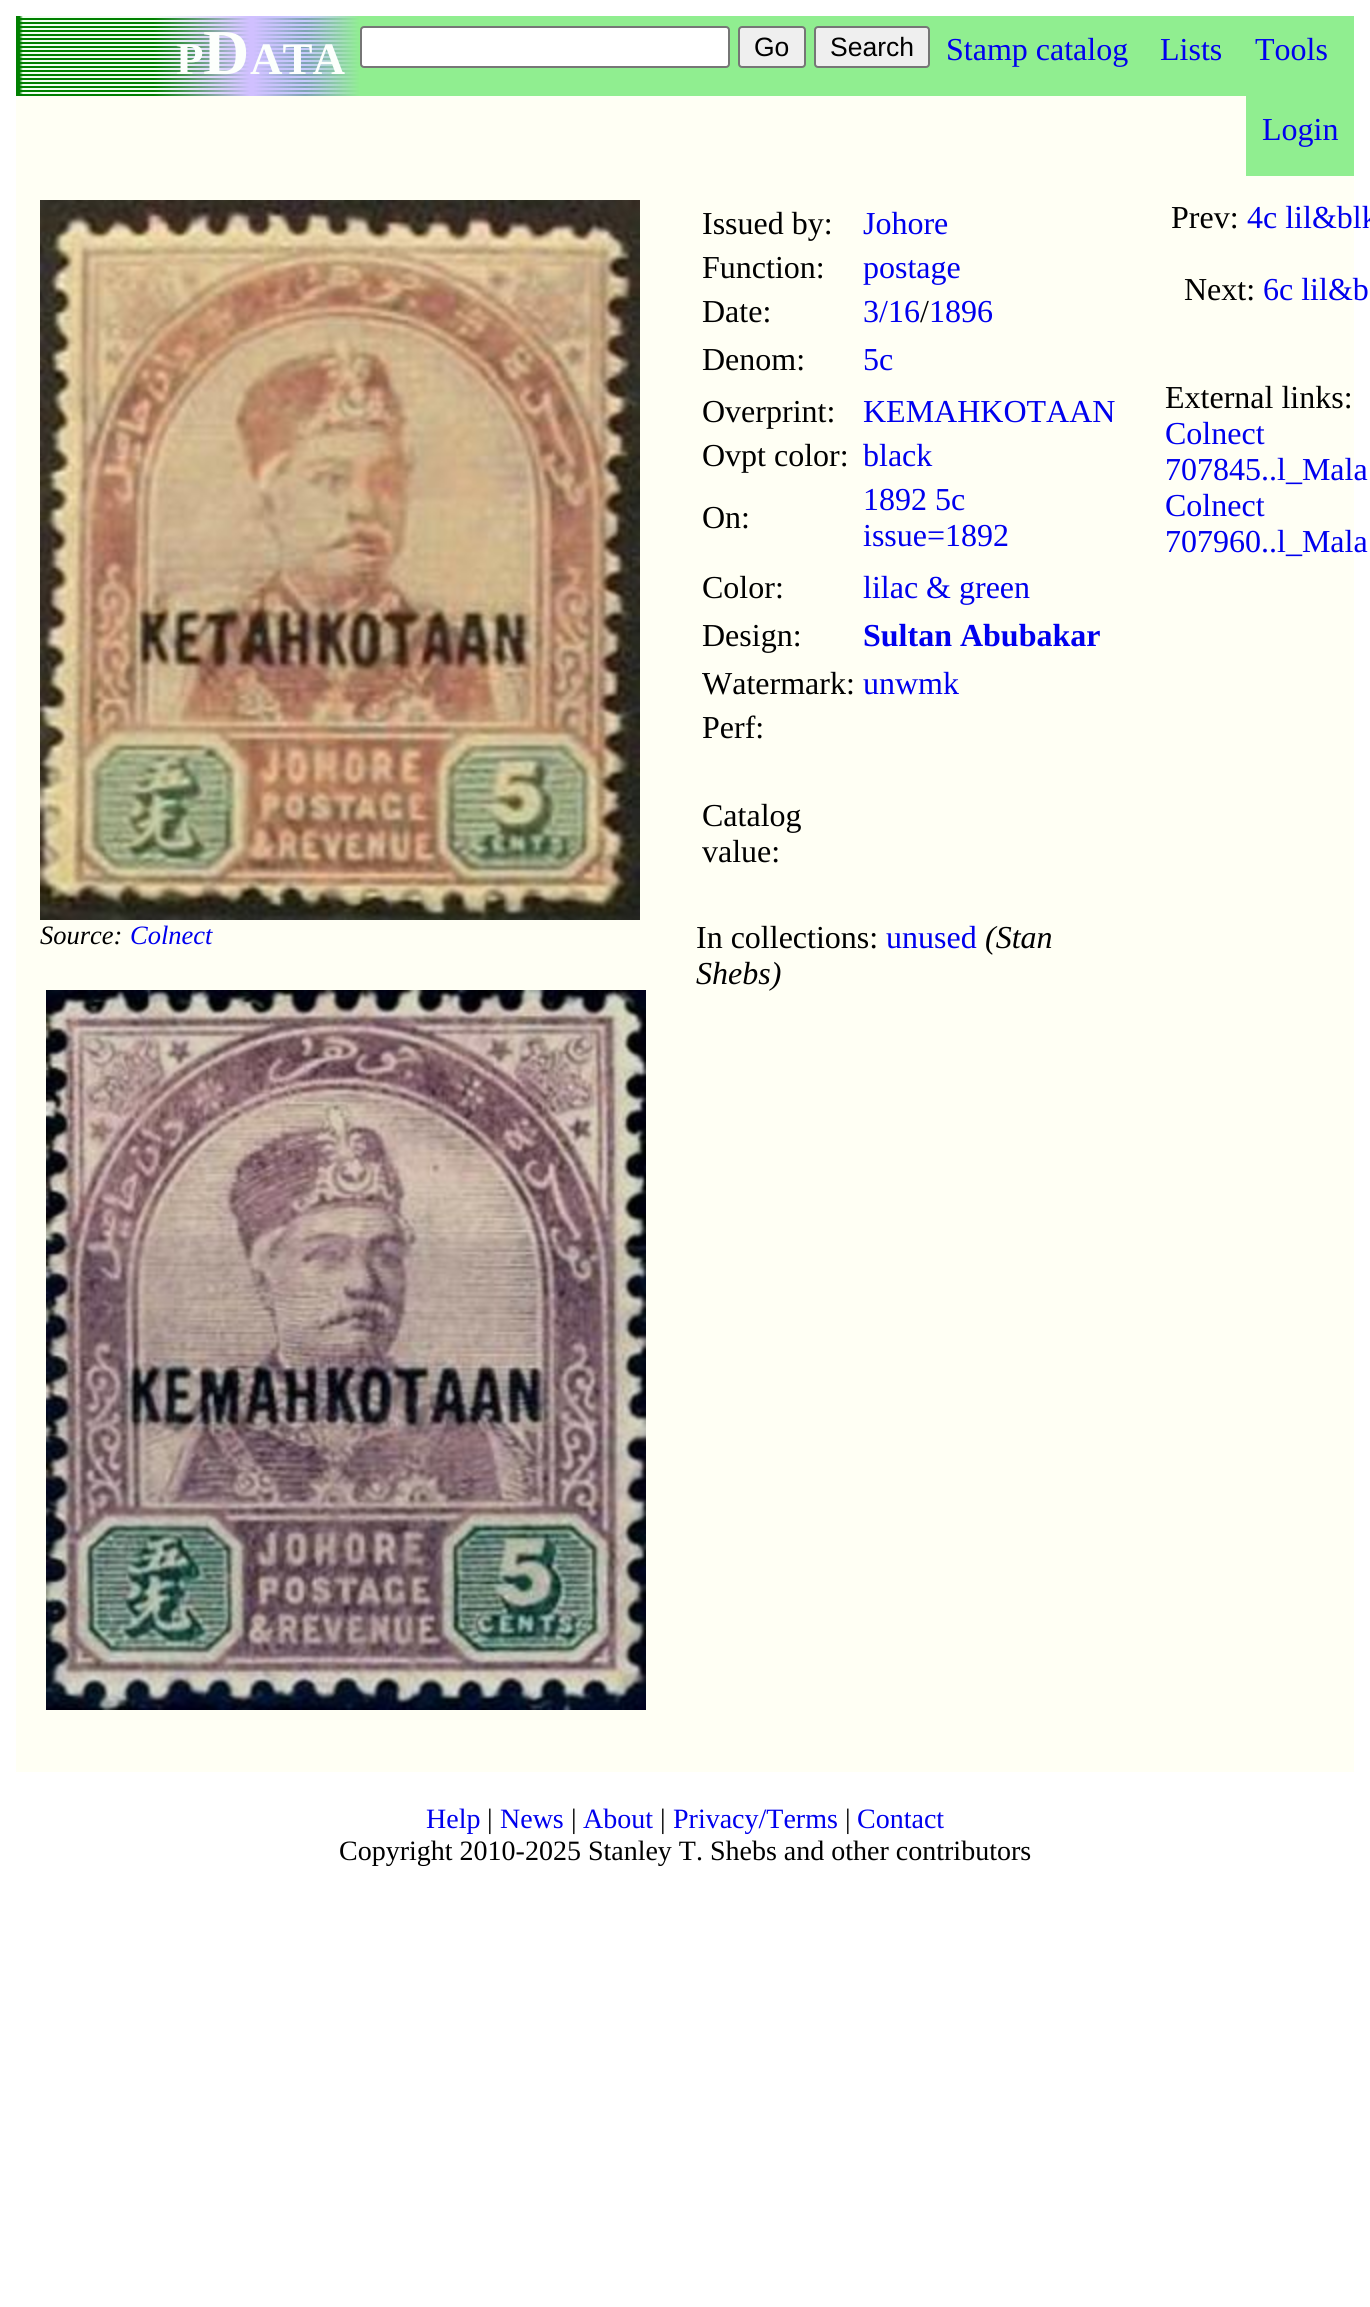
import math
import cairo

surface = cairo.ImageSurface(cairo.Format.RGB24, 1370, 2307)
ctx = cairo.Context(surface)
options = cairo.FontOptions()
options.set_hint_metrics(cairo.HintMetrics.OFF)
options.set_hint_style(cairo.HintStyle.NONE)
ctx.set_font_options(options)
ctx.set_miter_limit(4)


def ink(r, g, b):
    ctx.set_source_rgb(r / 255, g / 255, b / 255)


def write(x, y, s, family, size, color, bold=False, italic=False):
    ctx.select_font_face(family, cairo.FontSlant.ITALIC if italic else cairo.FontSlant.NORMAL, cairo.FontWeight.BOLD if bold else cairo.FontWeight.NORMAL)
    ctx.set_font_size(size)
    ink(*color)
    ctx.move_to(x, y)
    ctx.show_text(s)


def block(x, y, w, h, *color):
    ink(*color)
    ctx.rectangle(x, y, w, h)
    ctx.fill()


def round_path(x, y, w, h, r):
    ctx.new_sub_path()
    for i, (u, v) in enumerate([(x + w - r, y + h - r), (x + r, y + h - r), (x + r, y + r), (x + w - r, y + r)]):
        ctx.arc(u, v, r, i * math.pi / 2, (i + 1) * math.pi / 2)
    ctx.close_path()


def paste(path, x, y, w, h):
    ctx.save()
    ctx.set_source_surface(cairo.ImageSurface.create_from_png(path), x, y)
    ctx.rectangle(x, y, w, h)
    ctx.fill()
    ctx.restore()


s1 = dict(family="Liberation Serif", size=45, color=(252, 255, 252), bold=True)
s2 = dict(family="Liberation Serif", size=64, color=(252, 255, 252), bold=True)
s3 = dict(family="Liberation Sans", size=26.5, color=(0, 0, 0))
s4 = dict(family="Liberation Serif", size=32, color=(0, 0, 238))
s5 = dict(family="Liberation Serif", size=26.5, color=(0, 0, 0), italic=True)
s6 = dict(family="Liberation Serif", size=26.5, color=(0, 0, 238), italic=True)
s7 = dict(family="Liberation Serif", size=32, color=(0, 0, 0))
s8 = dict(family="Liberation Serif", size=32, color=(0, 0, 238), bold=True)
s9 = dict(family="Liberation Serif", size=32, color=(0, 0, 0), italic=True)
s10 = dict(family="Liberation Serif", size=28, color=(0, 0, 238))
s11 = dict(family="Liberation Serif", size=28, color=(0, 0, 0))

ink(255, 255, 255)
ctx.paint()
block(360, 16, 994, 80, 144, 238, 144)
paste("pic1.png", 16, 16, 344, 80)
write(176, 74, "P", **s1)
write(203, 74, "D", **s2)
write(250, 74, "ATA", **s1)
ink(255, 255, 255)
round_path(361, 27, 368, 40, 3)
ctx.fill_preserve()
ink(118, 118, 118)
ctx.stroke()
ink(239, 239, 239)
round_path(739, 27, 66, 40, 3)
ctx.fill_preserve()
ink(118, 118, 118)
ctx.stroke()
write(754, 56, "Go", **s3)
ink(239, 239, 239)
round_path(815, 27, 114, 40, 3)
ctx.fill_preserve()
ink(118, 118, 118)
ctx.stroke()
write(830, 56, "Search", **s3)
write(946, 60, "Stamp catalog", **s4)
write(1160, 60, "Lists", **s4)
write(1255, 60, "Tools", **s4)
block(16, 96, 1338, 1676, 255, 255, 244)
block(1246, 96, 108, 80, 144, 238, 144)
write(1262, 140, "Login", **s4)
paste("pic2.png", 40, 200, 600, 720)
write(40, 944, "Source:", **s5)
write(130, 944, "Colnect", **s6)
paste("pic3.png", 46, 990, 600, 720)
write(702, 234, "Issued by:", **s7)
write(863, 234, "Johore", **s4)
write(702, 278, "Function:", **s7)
write(863, 278, "postage", **s4)
write(702, 322, "Date:", **s7)
write(863, 322, "3/16", **s4)
write(920, 322, "/", **s7)
write(929, 322, "1896", **s4)
write(702, 370, "Denom:", **s7)
write(863, 370, "5c", **s4)
write(702, 422, "Overprint:", **s7)
write(863, 422, "KEMAHKOTAAN", **s4)
write(702, 466, "Ovpt color:", **s7)
write(863, 466, "black", **s4)
write(702, 528, "On:", **s7)
write(863, 510, "1892 5c", **s4)
write(863, 546, "issue=1892", **s4)
write(702, 598, "Color:", **s7)
write(863, 598, "lilac & green", **s4)
write(702, 646, "Design:", **s7)
write(863, 646, "Sultan Abubakar", **s8)
write(702, 694, "Watermark:", **s7)
write(863, 694, "unwmk", **s4)
write(702, 738, "Perf:", **s7)
write(702, 826, "Catalog", **s7)
write(702, 862, "value:", **s7)
write(696, 948, "In collections:", **s7)
write(886, 948, "unused", **s4)
write(985, 948, "(Stan", **s9)
write(696, 984, "Shebs)", **s9)
write(1171, 228, "Prev:", **s7)
write(1247, 228, "4c lil&blk", **s4)
write(1184, 300, "Next:", **s7)
write(1263, 300, "6c lil&b", **s4)
write(1165, 408, "External links:", **s7)
write(1165, 444, "Colnect", **s4)
write(1165, 480, "707845..l_Mala", **s4)
write(1165, 516, "Colnect", **s4)
write(1165, 552, "707960..l_Mala", **s4)
write(426, 1828, "Help", **s10)
write(487, 1828, "|", **s11)
write(500, 1828, "News", **s10)
write(571, 1828, "|", **s11)
write(583, 1828, "About", **s10)
write(660, 1828, "|", **s11)
write(673, 1828, "Privacy/Terms", **s10)
write(845, 1828, "|", **s11)
write(857, 1828, "Contact", **s10)
write(339, 1860, "Copyright 2010-2025 Stanley T. Shebs and other contributors", **s11)
surface.write_to_png("screenshot.png")
